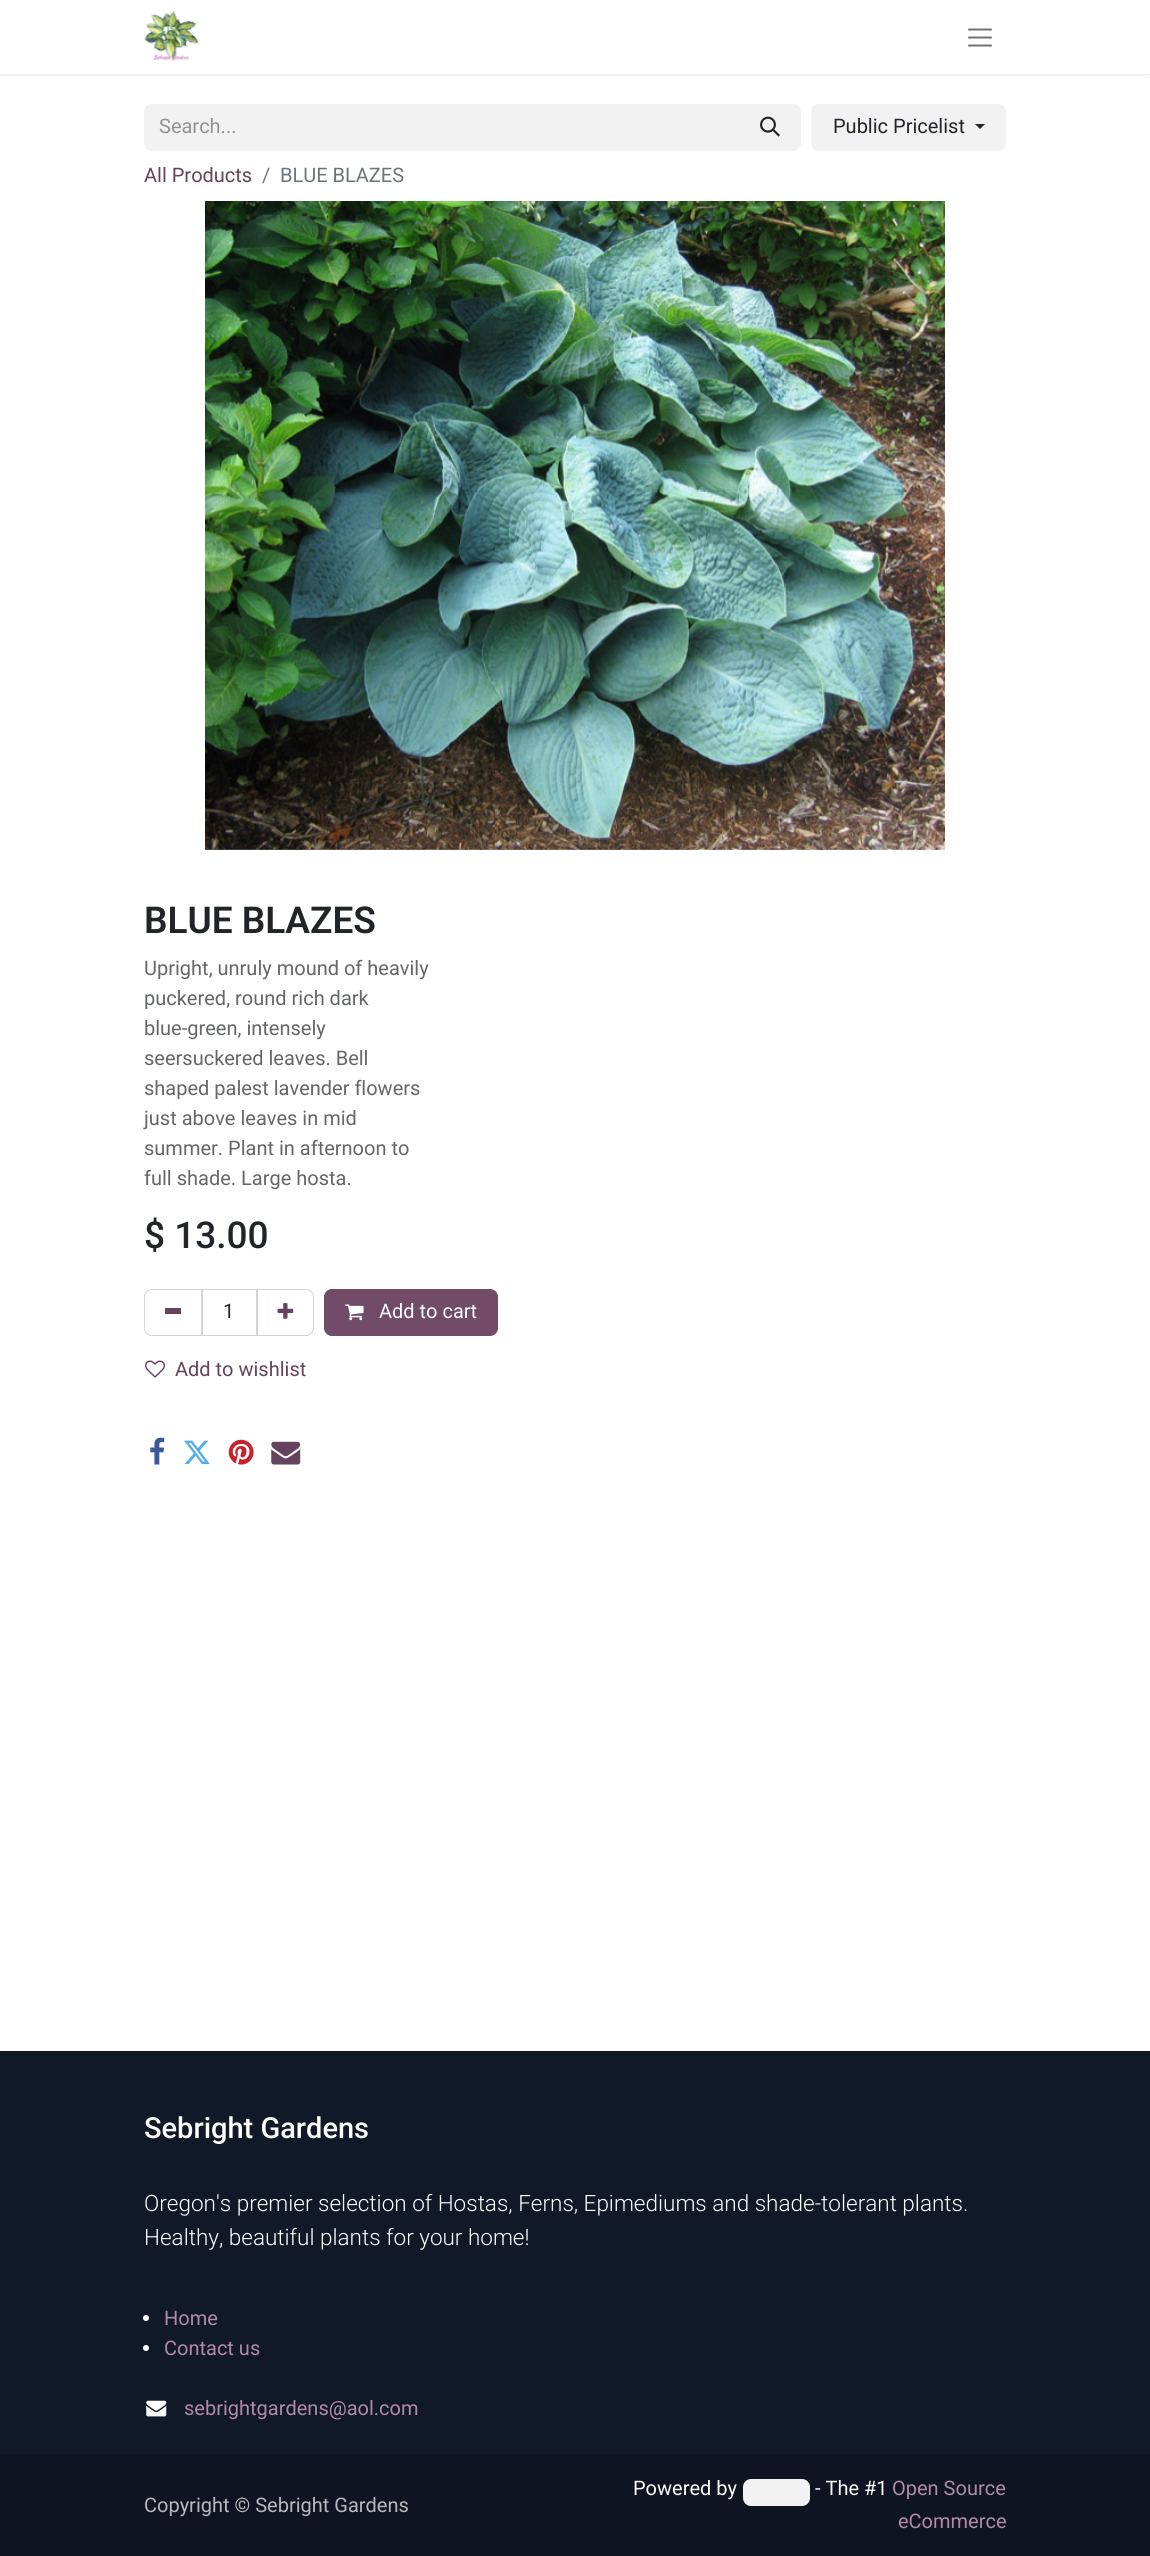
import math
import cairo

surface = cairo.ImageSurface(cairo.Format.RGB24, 1150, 2556)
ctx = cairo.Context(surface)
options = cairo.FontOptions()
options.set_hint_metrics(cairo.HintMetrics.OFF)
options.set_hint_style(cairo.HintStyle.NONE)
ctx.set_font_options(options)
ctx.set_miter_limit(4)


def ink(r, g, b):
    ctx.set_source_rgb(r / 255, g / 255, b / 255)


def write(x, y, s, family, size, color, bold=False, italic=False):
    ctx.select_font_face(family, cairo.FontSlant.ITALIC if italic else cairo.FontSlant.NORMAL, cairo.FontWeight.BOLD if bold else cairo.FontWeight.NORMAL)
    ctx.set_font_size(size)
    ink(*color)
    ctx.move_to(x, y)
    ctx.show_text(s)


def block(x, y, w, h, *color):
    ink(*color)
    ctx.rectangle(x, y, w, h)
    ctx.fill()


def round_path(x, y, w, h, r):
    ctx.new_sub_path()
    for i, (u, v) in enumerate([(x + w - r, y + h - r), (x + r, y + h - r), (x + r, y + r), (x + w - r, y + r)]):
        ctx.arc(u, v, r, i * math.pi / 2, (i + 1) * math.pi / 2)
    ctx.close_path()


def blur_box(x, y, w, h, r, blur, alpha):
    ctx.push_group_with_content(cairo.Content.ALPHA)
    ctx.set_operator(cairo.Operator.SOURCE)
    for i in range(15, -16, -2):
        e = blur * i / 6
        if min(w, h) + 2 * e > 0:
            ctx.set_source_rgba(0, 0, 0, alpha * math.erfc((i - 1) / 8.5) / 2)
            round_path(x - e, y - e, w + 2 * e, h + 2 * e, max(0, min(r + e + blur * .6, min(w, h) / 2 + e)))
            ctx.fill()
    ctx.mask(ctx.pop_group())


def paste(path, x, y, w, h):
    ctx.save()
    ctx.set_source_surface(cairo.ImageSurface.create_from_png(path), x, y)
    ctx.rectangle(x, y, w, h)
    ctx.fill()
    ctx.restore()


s1 = dict(family="Roboto", size=20, color=(144, 146, 148))
s2 = dict(family="Roboto", size=20, color=(33, 37, 41))
s3 = dict(family="Roboto", size=20, color=(101, 67, 92))
s4 = dict(family="Roboto", size=20, color=(108, 117, 125))
s5 = dict(family="Roboto SemiBold", size=37, color=(33, 37, 41))
s6 = dict(family="Roboto", size=20, color=(100, 102, 105))
s7 = dict(family="Roboto Medium", size=37, color=(33, 37, 41))
s8 = dict(family="Roboto", size=20, color=(255, 255, 255))
s9 = dict(family="Roboto Medium", size=29, color=(255, 255, 255))
s10 = dict(family="Roboto Light", size=22.5, color=(255, 255, 255))
s11 = dict(family="Roboto", size=20, color=(177, 138, 167))
s12 = dict(family="Roboto", size=20, color=(183, 185, 188))

ink(255, 255, 255)
ctx.paint()
ink(0, 0, 0)
blur_box(0, 1, 1150, 74, 0, 2, 0.1)
block(0, 0, 1150, 74, 255, 255, 255)
paste("pic1.png", 144, 11, 56, 51)
paste("pic2.png", 968, 28, 24, 19)
ink(243, 242, 242)
ctx.new_path()
ctx.move_to(152, 104)
ctx.line_to(740, 104)
ctx.line_to(740, 151)
ctx.line_to(152, 151)
ctx.curve_to(147.5, 151, 144, 147.5, 144, 143)
ctx.line_to(144, 112)
ctx.curve_to(144, 107.5, 147.5, 104, 152, 104)
ctx.close_path()
ctx.fill()
write(159, 133, "Search...", **s1)
ink(243, 242, 242)
ctx.new_path()
ctx.move_to(739.5, 104.5)
ctx.line_to(793, 104.5)
ctx.curve_to(797, 104.5, 800.5, 108, 800.5, 112)
ctx.line_to(800.5, 143)
ctx.curve_to(800.5, 147, 797, 150.5, 793, 150.5)
ctx.line_to(739.5, 150.5)
ctx.close_path()
ctx.fill_preserve()
ctx.set_line_width(1)
ctx.stroke()
paste("pic3.png", 760, 116, 20, 21)
round_path(811.5, 104.5, 194, 46, 7.5)
ctx.fill_preserve()
ctx.stroke()
write(833, 133, "Public Pricelist", **s2)
ctx.new_path()
ctx.move_to(975, 124)
ctx.line_to(985, 124)
ctx.line_to(980, 129)
ctx.close_path()
ctx.fill()
write(144, 182, "All Products", **s3)
write(262, 182, "/", **s4)
write(280, 182, "BLUE BLAZES", **s4)
paste("pic4.png", 205, 201, 740, 649)
write(144, 933, "BLUE BLAZES", **s5)
write(144, 975, "Upright, unruly mound of heavily", **s6)
write(144, 1005, "puckered, round rich dark", **s6)
write(144, 1035, "blue-green, intensely", **s6)
write(144, 1065, "seersuckered leaves. Bell", **s6)
write(144, 1095, "shaped palest lavender flowers", **s6)
write(144, 1125, "just above leaves in mid", **s6)
write(144, 1155, "summer. Plant in afternoon to", **s6)
write(144, 1185, "full shade. Large hosta.", **s6)
write(144, 1248, "$ 13.00", **s7)
ctx.rectangle(201.5, 1289.5, 56, 46)
ink(206, 212, 218)
ctx.stroke()
ctx.new_path()
ctx.move_to(152, 1289.5)
ctx.line_to(202.5, 1289.5)
ctx.line_to(202.5, 1335.5)
ctx.line_to(152, 1335.5)
ctx.curve_to(148, 1335.5, 144.5, 1332, 144.5, 1328)
ctx.line_to(144.5, 1297)
ctx.curve_to(144.5, 1293, 148, 1289.5, 152, 1289.5)
ctx.close_path()
ctx.stroke()
block(165, 1308, 16, 6, 101, 67, 92)
write(223, 1318, "1", **s2)
ctx.new_path()
ctx.move_to(256.5, 1289.5)
ctx.line_to(306, 1289.5)
ctx.curve_to(310, 1289.5, 313.5, 1293, 313.5, 1297)
ctx.line_to(313.5, 1328)
ctx.curve_to(313.5, 1332, 310, 1335.5, 306, 1335.5)
ctx.line_to(256.5, 1335.5)
ctx.close_path()
ink(206, 212, 218)
ctx.stroke()
paste("pic5.png", 277, 1303, 17, 16)
ink(113, 75, 103)
round_path(324.5, 1289.5, 173, 46, 7.5)
ctx.fill_preserve()
ctx.stroke()
paste("pic6.png", 345, 1304, 19, 17)
write(379, 1318, "Add to cart", **s8)
paste("pic7.png", 145, 1360, 20, 18)
write(175, 1376, "Add to wishlist", **s3)
paste("pic8.png", 150, 1437, 15, 28)
paste("pic9.png", 184, 1440, 26, 25)
paste("pic10.png", 228, 1439, 26, 26)
paste("pic11.png", 271, 1441, 30, 24)
block(0, 2051, 1150, 403, 17, 24, 39)
write(144, 2138, "Sebright Gardens", **s9)
write(144, 2211, "Oregon's premier selection of Hostas, Ferns, Epimediums and shade-tolerant plants.", **s10)
write(144, 2245, "Healthy, beautiful plants for your home!", **s10)
ctx.new_path()
ctx.arc(146, 2318, 3, 0, 2 * math.pi)
ctx.fill()
write(164, 2325, "Home", **s11)
ink(255, 255, 255)
ctx.new_path()
ctx.arc(146, 2348, 3, 0, 2 * math.pi)
ctx.fill()
write(164, 2355, "Contact us", **s11)
paste("pic12.png", 146, 2400, 21, 17)
write(184, 2415, "sebrightgardens@aol.com", **s11)
block(0, 2454, 1150, 102, 14, 20, 33)
write(144, 2512, "Copyright © Sebright Gardens", **s12)
write(633, 2495, "Powered by", **s8)
ink(243, 242, 242)
round_path(743, 2479, 67, 27, 8)
ctx.fill()
write(815, 2495, "- The #1", **s8)
write(892, 2495, "Open Source", **s11)
write(898, 2528, "eCommerce", **s11)
surface.write_to_png("screenshot.png")
